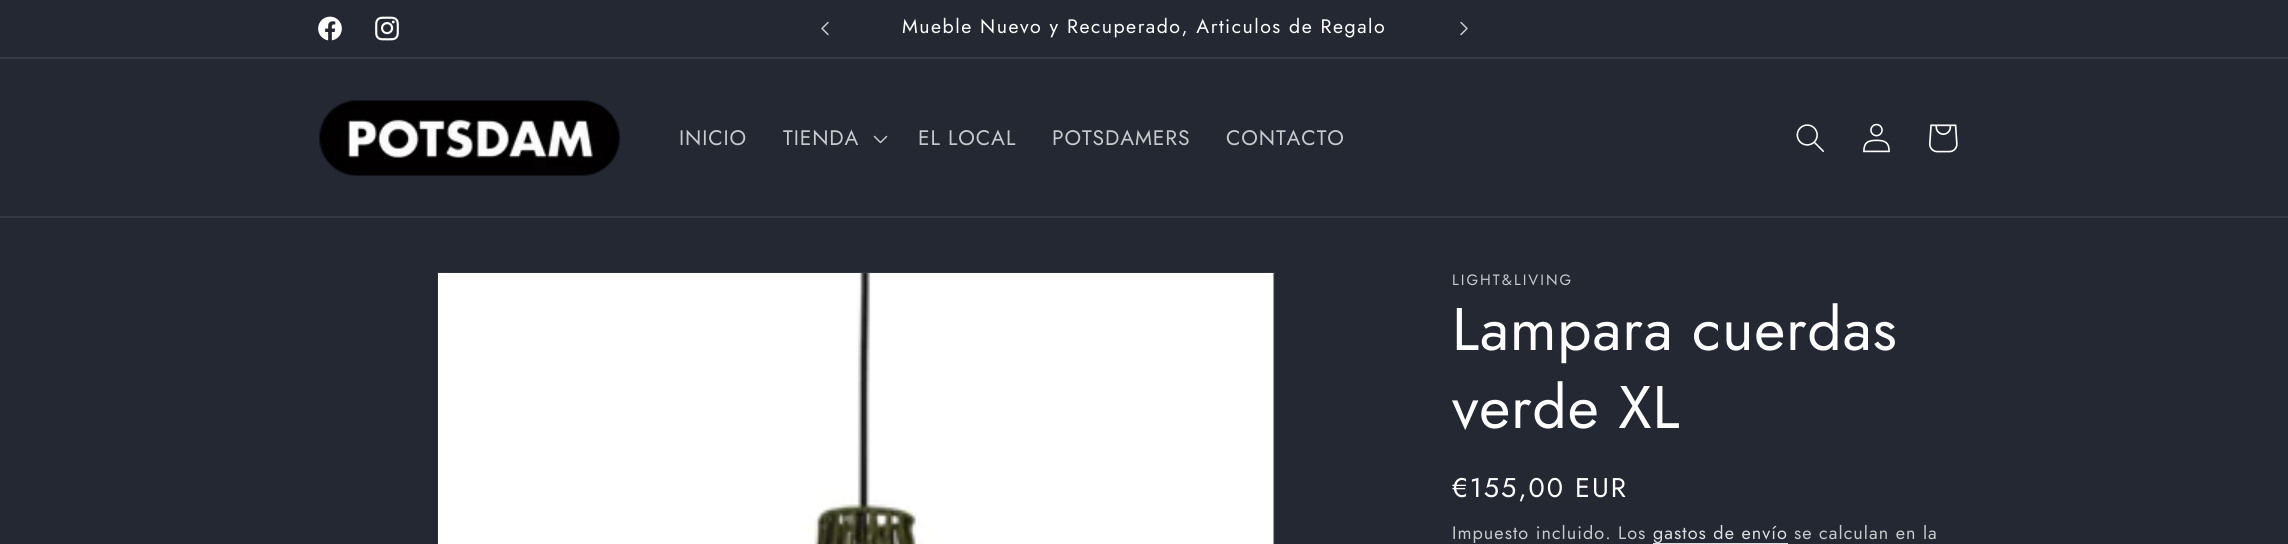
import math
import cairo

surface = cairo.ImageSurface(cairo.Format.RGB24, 2288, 544)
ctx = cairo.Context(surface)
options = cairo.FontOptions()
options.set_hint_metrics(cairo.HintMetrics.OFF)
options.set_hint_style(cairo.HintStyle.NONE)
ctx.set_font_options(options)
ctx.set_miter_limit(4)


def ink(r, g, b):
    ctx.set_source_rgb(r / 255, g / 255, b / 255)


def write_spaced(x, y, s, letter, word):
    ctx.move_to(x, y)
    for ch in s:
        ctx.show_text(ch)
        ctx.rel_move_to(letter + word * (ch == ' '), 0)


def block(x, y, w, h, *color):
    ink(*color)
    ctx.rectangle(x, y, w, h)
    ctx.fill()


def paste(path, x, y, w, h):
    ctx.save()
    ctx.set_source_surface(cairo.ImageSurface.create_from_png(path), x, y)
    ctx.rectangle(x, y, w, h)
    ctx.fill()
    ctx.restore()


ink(36, 40, 51)
ctx.paint()
block(0, 57, 2288, 2, 54, 57, 67)
paste("pic1.png", 318, 16, 24, 25)
paste("pic2.png", 375, 16, 24, 25)
paste("pic3.png", 821, 21, 8, 15)
ctx.select_font_face("Jost")
ctx.set_font_size(19.5)
ink(255, 255, 255)
write_spaced(902, 33, "Mueble Nuevo y Recuperado, Articulos de Regalo", 1.5, 0)
paste("pic4.png", 1460, 21, 8, 15)
block(0, 216, 2288, 2, 54, 57, 67)
paste("pic5.png", 319, 100, 301, 76)
ctx.set_font_size(21)
ink(200, 201, 204)
write_spaced(679, 145, "INICIO", 0.9, 0)
write_spaced(783, 145, "TIENDA", 0.9, 0)
paste("pic6.png", 873, 135, 15, 9)
write_spaced(918, 145, "EL LOCAL", 0.9, 0)
write_spaced(1052, 145, "POTSDAMERS", 0.9, 0)
write_spaced(1226, 145, "CONTACTO", 0.9, 0)
paste("pic7.png", 1796, 124, 28, 28)
paste("pic8.png", 1863, 123, 27, 30)
paste("pic9.png", 1929, 124, 29, 29)
ctx.rectangle(438, 273, 836, 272)
ink(47, 51, 61)
ctx.stroke()
paste("pic10.png", 438, 273, 836, 271)
ctx.set_font_size(15)
ink(200, 201, 204)
write_spaced(1452, 285, "LIGHT&LIVING", 2, 0)
ctx.set_font_size(60)
ink(255, 255, 255)
write_spaced(1452, 350, "Lampara cuerdas", 0.9, 0)
write_spaced(1452, 428, "verde XL", 0.9, 0)
ctx.set_font_size(27)
write_spaced(1452, 497, "€155,00 EUR", 2, 0)
ctx.set_font_size(18)
ink(200, 201, 204)
write_spaced(1452, 539, "Impuesto incluido. Los", 1.05, 0)
block(1653, 543, 135, 1, 222, 223, 224)
write_spaced(1653, 539, "gastos de envío", 1.05, 0)
ink(200, 201, 204)
write_spaced(1794, 539, "se calculan en la", 1.05, 0)
surface.write_to_png("screenshot.png")
